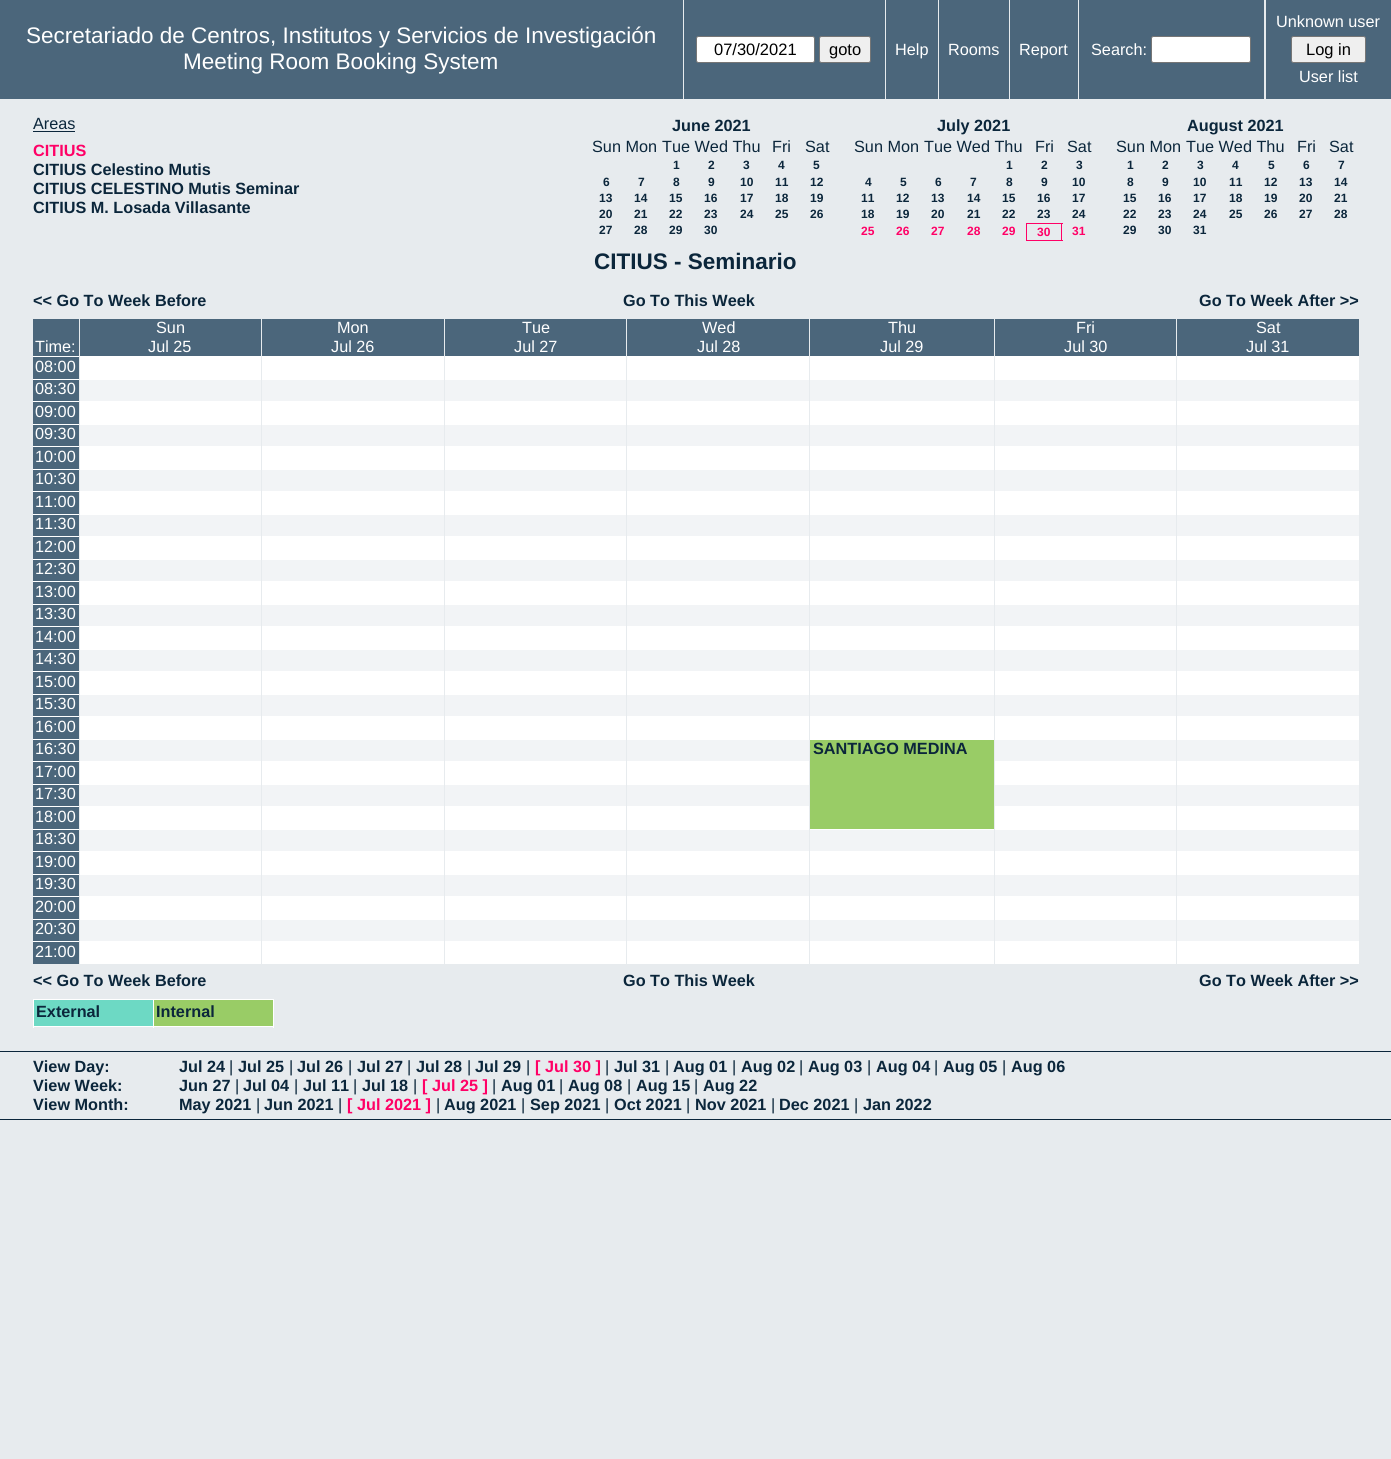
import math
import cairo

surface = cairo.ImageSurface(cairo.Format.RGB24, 1391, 1459)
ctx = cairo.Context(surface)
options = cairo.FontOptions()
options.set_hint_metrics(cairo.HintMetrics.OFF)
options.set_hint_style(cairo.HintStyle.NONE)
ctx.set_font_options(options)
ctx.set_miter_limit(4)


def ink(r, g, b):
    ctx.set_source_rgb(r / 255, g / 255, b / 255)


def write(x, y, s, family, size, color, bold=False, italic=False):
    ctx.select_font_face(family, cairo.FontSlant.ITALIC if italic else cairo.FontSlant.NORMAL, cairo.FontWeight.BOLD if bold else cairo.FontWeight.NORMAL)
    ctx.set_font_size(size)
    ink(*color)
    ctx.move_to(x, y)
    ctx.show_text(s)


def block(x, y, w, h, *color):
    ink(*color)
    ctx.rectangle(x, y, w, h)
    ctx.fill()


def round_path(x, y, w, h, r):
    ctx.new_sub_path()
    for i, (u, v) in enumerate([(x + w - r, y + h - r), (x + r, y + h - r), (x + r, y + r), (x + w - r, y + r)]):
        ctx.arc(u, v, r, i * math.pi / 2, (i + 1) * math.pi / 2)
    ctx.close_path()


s1 = dict(family="Liberation Sans", size=22.5, color=(255, 255, 255))
s2 = dict(family="Liberation Sans", size=16.5, color=(0, 0, 0))
s3 = dict(family="Liberation Sans", size=16.25, color=(255, 255, 255))
s4 = dict(family="Liberation Sans", size=16.25, color=(11, 38, 59))
s5 = dict(family="Liberation Sans", size=16.25, color=(255, 0, 102), bold=True)
s6 = dict(family="Liberation Sans", size=16.25, color=(11, 38, 59), bold=True)
s7 = dict(family="Liberation Sans", size=12, color=(11, 38, 59), bold=True)
s8 = dict(family="Liberation Sans", size=12, color=(255, 0, 102), bold=True)
s9 = dict(family="Liberation Sans", size=22.5, color=(11, 38, 59), bold=True)

ink(231, 235, 238)
ctx.paint()
block(0, 0, 683, 99, 75, 102, 123)
write(26, 43, "Secretariado de Centros, Institutos y Servicios de Investigación", **s1)
write(183, 69, "Meeting Room Booking System", **s1)
block(684, 0, 201, 99, 75, 102, 123)
ink(255, 255, 255)
round_path(696.5, 36.5, 118, 26, 2)
ctx.fill_preserve()
ink(118, 118, 118)
ctx.set_line_width(1)
ctx.stroke()
write(714, 55, "07/30/2021", **s2)
ink(239, 239, 239)
round_path(819.5, 36.5, 51, 26, 2)
ctx.fill_preserve()
ink(118, 118, 118)
ctx.stroke()
write(829, 55, "goto", **s2)
block(886, 0, 52, 99, 75, 102, 123)
write(895, 55, "Help", **s3)
block(939, 0, 70, 99, 75, 102, 123)
write(948, 55, "Rooms", **s3)
block(1010, 0, 68, 99, 75, 102, 123)
write(1019, 55, "Report", **s3)
block(1079, 0, 185, 99, 75, 102, 123)
write(1091, 55, "Search:", **s3)
round_path(1151.5, 36.5, 99, 26, 2)
ctx.fill_preserve()
ink(118, 118, 118)
ctx.stroke()
block(1266, 0, 125, 99, 75, 102, 123)
write(1276, 27, "Unknown user", **s3)
ink(239, 239, 239)
round_path(1291.5, 36.5, 74, 26, 2)
ctx.fill_preserve()
ink(118, 118, 118)
ctx.stroke()
write(1306, 55, "Log in", **s2)
write(1299, 82, "User list", **s3)
write(33, 129, "Areas", **s4)
block(33, 131, 42, 1, 11, 38, 59)
write(33, 156, "CITIUS", **s5)
write(33, 175, "CITIUS Celestino Mutis", **s6)
write(33, 194, "CITIUS CELESTINO Mutis Seminar", **s6)
write(33, 213, "CITIUS M. Losada Villasante", **s6)
write(672, 131, "June 2021", **s6)
write(592, 152, "Sun Mon", **s4)
write(662, 152, "Tue Wed Thu", **s4)
write(772, 152, "Fri", **s4)
write(805, 152, "Sat", **s4)
write(673, 169, "1", **s7)
write(708, 169, "2", **s7)
write(743, 169, "3", **s7)
write(778, 169, "4", **s7)
write(813, 169, "5", **s7)
write(603, 186, "6", **s7)
write(638, 186, "7", **s7)
write(673, 186, "8", **s7)
write(708, 186, "9", **s7)
write(740, 186, "10", **s7)
write(775, 186, "11", **s7)
write(810, 186, "12", **s7)
write(599, 202, "13", **s7)
write(634, 202, "14", **s7)
write(669, 202, "15", **s7)
write(704, 202, "16", **s7)
write(740, 202, "17", **s7)
write(775, 202, "18", **s7)
write(810, 202, "19", **s7)
write(599, 218, "20", **s7)
write(634, 218, "21", **s7)
write(669, 218, "22", **s7)
write(704, 218, "23", **s7)
write(740, 218, "24", **s7)
write(775, 218, "25", **s7)
write(810, 218, "26", **s7)
write(599, 234, "27", **s7)
write(634, 234, "28", **s7)
write(669, 234, "29", **s7)
write(704, 234, "30", **s7)
write(937, 131, "July 2021", **s6)
write(854, 152, "Sun Mon", **s4)
write(924, 152, "Tue Wed Thu", **s4)
write(1035, 152, "Fri", **s4)
write(1067, 152, "Sat", **s4)
write(1006, 169, "1", **s7)
write(1041, 169, "2", **s7)
write(1076, 169, "3", **s7)
write(865, 186, "4", **s7)
write(900, 186, "5", **s7)
write(935, 186, "6", **s7)
write(970, 186, "7", **s7)
write(1006, 186, "8", **s7)
write(1041, 186, "9", **s7)
write(1072, 186, "10", **s7)
write(861, 202, "11", **s7)
write(896, 202, "12", **s7)
write(931, 202, "13", **s7)
write(967, 202, "14", **s7)
write(1002, 202, "15", **s7)
write(1037, 202, "16", **s7)
write(1072, 202, "17", **s7)
write(861, 218, "18", **s7)
write(896, 218, "19", **s7)
write(931, 218, "20", **s7)
write(967, 218, "21", **s7)
write(1002, 218, "22", **s7)
write(1037, 218, "23", **s7)
write(1072, 218, "24", **s7)
write(861, 235, "25", **s8)
write(896, 235, "26", **s8)
write(931, 235, "27", **s8)
write(967, 235, "28", **s8)
write(1002, 235, "29", **s8)
block(1026, 223, 37, 1, 255, 0, 102)
block(1061, 223, 1, 18, 255, 0, 102)
block(1026, 240, 37, 1, 255, 0, 102)
block(1026, 223, 1, 18, 255, 0, 102)
write(1037, 236, "30", **s8)
write(1072, 235, "31", **s8)
write(1187, 131, "August 2021", **s6)
write(1116, 152, "Sun Mon", **s4)
write(1186, 152, "Tue Wed Thu", **s4)
write(1297, 152, "Fri", **s4)
write(1329, 152, "Sat", **s4)
write(1127, 169, "1", **s7)
write(1162, 169, "2", **s7)
write(1197, 169, "3", **s7)
write(1232, 169, "4", **s7)
write(1268, 169, "5", **s7)
write(1303, 169, "6", **s7)
write(1338, 169, "7", **s7)
write(1127, 186, "8", **s7)
write(1162, 186, "9", **s7)
write(1193, 186, "10", **s7)
write(1229, 186, "11", **s7)
write(1264, 186, "12", **s7)
write(1299, 186, "13", **s7)
write(1334, 186, "14", **s7)
write(1123, 202, "15", **s7)
write(1158, 202, "16", **s7)
write(1193, 202, "17", **s7)
write(1229, 202, "18", **s7)
write(1264, 202, "19", **s7)
write(1299, 202, "20", **s7)
write(1334, 202, "21", **s7)
write(1123, 218, "22", **s7)
write(1158, 218, "23", **s7)
write(1193, 218, "24", **s7)
write(1229, 218, "25", **s7)
write(1264, 218, "26", **s7)
write(1299, 218, "27", **s7)
write(1334, 218, "28", **s7)
write(1123, 234, "29", **s7)
write(1158, 234, "30", **s7)
write(1193, 234, "31", **s7)
write(594, 269, "CITIUS - Seminario", **s9)
write(33, 306, "<< Go To Week Before", **s6)
write(623, 306, "Go To This Week", **s6)
write(1199, 306, "Go To Week After >>", **s6)
block(33, 319, 46, 37, 75, 102, 123)
write(35, 352, "Time:", **s3)
block(80, 319, 181, 37, 75, 102, 123)
write(156, 333, "Sun", **s3)
write(148, 352, "Jul 25", **s3)
block(262, 319, 182, 37, 75, 102, 123)
write(337, 333, "Mon", **s3)
write(331, 352, "Jul 26", **s3)
block(445, 319, 181, 37, 75, 102, 123)
write(522, 333, "Tue", **s3)
write(514, 352, "Jul 27", **s3)
block(627, 319, 182, 37, 75, 102, 123)
write(702, 333, "Wed", **s3)
write(697, 352, "Jul 28", **s3)
block(810, 319, 184, 37, 75, 102, 123)
write(888, 333, "Thu", **s3)
write(880, 352, "Jul 29", **s3)
block(995, 319, 181, 37, 75, 102, 123)
write(1076, 333, "Fri", **s3)
write(1064, 352, "Jul 30", **s3)
block(1177, 319, 182, 37, 75, 102, 123)
write(1256, 333, "Sat", **s3)
write(1246, 352, "Jul 31", **s3)
block(33, 357, 46, 22, 75, 102, 123)
block(33, 356, 46, 1, 255, 255, 255)
write(35, 372, "08:00", **s3)
block(80, 356, 181, 23, 255, 255, 255)
block(262, 356, 182, 23, 255, 255, 255)
block(445, 356, 181, 23, 255, 255, 255)
block(627, 356, 182, 23, 255, 255, 255)
block(810, 356, 184, 23, 255, 255, 255)
block(995, 356, 181, 23, 255, 255, 255)
block(1177, 356, 182, 23, 255, 255, 255)
block(33, 380, 46, 21, 75, 102, 123)
block(33, 379, 1326, 1, 255, 255, 255)
write(35, 394, "08:30", **s3)
block(80, 380, 181, 21, 242, 244, 246)
block(79, 379, 1, 1, 231, 235, 238)
block(262, 380, 182, 21, 242, 244, 246)
block(261, 379, 1, 1, 231, 235, 238)
block(445, 380, 181, 21, 242, 244, 246)
block(444, 379, 1, 1, 231, 235, 238)
block(627, 380, 182, 21, 242, 244, 246)
block(626, 379, 1, 1, 231, 235, 238)
block(810, 380, 184, 21, 242, 244, 246)
block(809, 379, 1, 1, 231, 235, 238)
block(995, 380, 181, 21, 242, 244, 246)
block(994, 379, 1, 1, 231, 235, 238)
block(1177, 380, 182, 21, 242, 244, 246)
block(1176, 379, 1, 1, 231, 235, 238)
block(33, 402, 46, 22, 75, 102, 123)
block(33, 401, 46, 1, 255, 255, 255)
write(35, 417, "09:00", **s3)
block(80, 401, 181, 23, 255, 255, 255)
block(262, 401, 182, 23, 255, 255, 255)
block(445, 401, 181, 23, 255, 255, 255)
block(627, 401, 182, 23, 255, 255, 255)
block(810, 401, 184, 23, 255, 255, 255)
block(995, 401, 181, 23, 255, 255, 255)
block(1177, 401, 182, 23, 255, 255, 255)
block(33, 425, 46, 21, 75, 102, 123)
block(33, 424, 1326, 1, 255, 255, 255)
write(35, 439, "09:30", **s3)
block(80, 425, 181, 21, 242, 244, 246)
block(79, 424, 1, 1, 231, 235, 238)
block(262, 425, 182, 21, 242, 244, 246)
block(261, 424, 1, 1, 231, 235, 238)
block(445, 425, 181, 21, 242, 244, 246)
block(444, 424, 1, 1, 231, 235, 238)
block(627, 425, 182, 21, 242, 244, 246)
block(626, 424, 1, 1, 231, 235, 238)
block(810, 425, 184, 21, 242, 244, 246)
block(809, 424, 1, 1, 231, 235, 238)
block(995, 425, 181, 21, 242, 244, 246)
block(994, 424, 1, 1, 231, 235, 238)
block(1177, 425, 182, 21, 242, 244, 246)
block(1176, 424, 1, 1, 231, 235, 238)
block(33, 447, 46, 22, 75, 102, 123)
block(33, 446, 46, 1, 255, 255, 255)
write(35, 462, "10:00", **s3)
block(80, 446, 181, 23, 255, 255, 255)
block(262, 446, 182, 23, 255, 255, 255)
block(445, 446, 181, 23, 255, 255, 255)
block(627, 446, 182, 23, 255, 255, 255)
block(810, 446, 184, 23, 255, 255, 255)
block(995, 446, 181, 23, 255, 255, 255)
block(1177, 446, 182, 23, 255, 255, 255)
block(33, 470, 46, 21, 75, 102, 123)
block(33, 469, 1326, 1, 255, 255, 255)
write(35, 484, "10:30", **s3)
block(80, 470, 181, 21, 242, 244, 246)
block(79, 469, 1, 1, 231, 235, 238)
block(262, 470, 182, 21, 242, 244, 246)
block(261, 469, 1, 1, 231, 235, 238)
block(445, 470, 181, 21, 242, 244, 246)
block(444, 469, 1, 1, 231, 235, 238)
block(627, 470, 182, 21, 242, 244, 246)
block(626, 469, 1, 1, 231, 235, 238)
block(810, 470, 184, 21, 242, 244, 246)
block(809, 469, 1, 1, 231, 235, 238)
block(995, 470, 181, 21, 242, 244, 246)
block(994, 469, 1, 1, 231, 235, 238)
block(1177, 470, 182, 21, 242, 244, 246)
block(1176, 469, 1, 1, 231, 235, 238)
block(33, 492, 46, 22, 75, 102, 123)
block(33, 491, 46, 1, 255, 255, 255)
write(35, 507, "11:00", **s3)
block(80, 491, 181, 23, 255, 255, 255)
block(262, 491, 182, 23, 255, 255, 255)
block(445, 491, 181, 23, 255, 255, 255)
block(627, 491, 182, 23, 255, 255, 255)
block(810, 491, 184, 23, 255, 255, 255)
block(995, 491, 181, 23, 255, 255, 255)
block(1177, 491, 182, 23, 255, 255, 255)
block(33, 515, 46, 21, 75, 102, 123)
block(33, 514, 1326, 1, 255, 255, 255)
write(35, 529, "11:30", **s3)
block(80, 515, 181, 21, 242, 244, 246)
block(79, 514, 1, 1, 231, 235, 238)
block(262, 515, 182, 21, 242, 244, 246)
block(261, 514, 1, 1, 231, 235, 238)
block(445, 515, 181, 21, 242, 244, 246)
block(444, 514, 1, 1, 231, 235, 238)
block(627, 515, 182, 21, 242, 244, 246)
block(626, 514, 1, 1, 231, 235, 238)
block(810, 515, 184, 21, 242, 244, 246)
block(809, 514, 1, 1, 231, 235, 238)
block(995, 515, 181, 21, 242, 244, 246)
block(994, 514, 1, 1, 231, 235, 238)
block(1177, 515, 182, 21, 242, 244, 246)
block(1176, 514, 1, 1, 231, 235, 238)
block(33, 537, 46, 22, 75, 102, 123)
block(33, 536, 46, 1, 255, 255, 255)
write(35, 552, "12:00", **s3)
block(80, 536, 181, 23, 255, 255, 255)
block(262, 536, 182, 23, 255, 255, 255)
block(445, 536, 181, 23, 255, 255, 255)
block(627, 536, 182, 23, 255, 255, 255)
block(810, 536, 184, 23, 255, 255, 255)
block(995, 536, 181, 23, 255, 255, 255)
block(1177, 536, 182, 23, 255, 255, 255)
block(33, 560, 46, 21, 75, 102, 123)
block(33, 559, 1326, 1, 255, 255, 255)
write(35, 574, "12:30", **s3)
block(80, 560, 181, 21, 242, 244, 246)
block(79, 559, 1, 1, 231, 235, 238)
block(262, 560, 182, 21, 242, 244, 246)
block(261, 559, 1, 1, 231, 235, 238)
block(445, 560, 181, 21, 242, 244, 246)
block(444, 559, 1, 1, 231, 235, 238)
block(627, 560, 182, 21, 242, 244, 246)
block(626, 559, 1, 1, 231, 235, 238)
block(810, 560, 184, 21, 242, 244, 246)
block(809, 559, 1, 1, 231, 235, 238)
block(995, 560, 181, 21, 242, 244, 246)
block(994, 559, 1, 1, 231, 235, 238)
block(1177, 560, 182, 21, 242, 244, 246)
block(1176, 559, 1, 1, 231, 235, 238)
block(33, 582, 46, 22, 75, 102, 123)
block(33, 581, 46, 1, 255, 255, 255)
write(35, 597, "13:00", **s3)
block(80, 581, 181, 23, 255, 255, 255)
block(262, 581, 182, 23, 255, 255, 255)
block(445, 581, 181, 23, 255, 255, 255)
block(627, 581, 182, 23, 255, 255, 255)
block(810, 581, 184, 23, 255, 255, 255)
block(995, 581, 181, 23, 255, 255, 255)
block(1177, 581, 182, 23, 255, 255, 255)
block(33, 605, 46, 21, 75, 102, 123)
block(33, 604, 1326, 1, 255, 255, 255)
write(35, 619, "13:30", **s3)
block(80, 605, 181, 21, 242, 244, 246)
block(79, 604, 1, 1, 231, 235, 238)
block(262, 605, 182, 21, 242, 244, 246)
block(261, 604, 1, 1, 231, 235, 238)
block(445, 605, 181, 21, 242, 244, 246)
block(444, 604, 1, 1, 231, 235, 238)
block(627, 605, 182, 21, 242, 244, 246)
block(626, 604, 1, 1, 231, 235, 238)
block(810, 605, 184, 21, 242, 244, 246)
block(809, 604, 1, 1, 231, 235, 238)
block(995, 605, 181, 21, 242, 244, 246)
block(994, 604, 1, 1, 231, 235, 238)
block(1177, 605, 182, 21, 242, 244, 246)
block(1176, 604, 1, 1, 231, 235, 238)
block(33, 627, 46, 22, 75, 102, 123)
block(33, 626, 46, 1, 255, 255, 255)
write(35, 642, "14:00", **s3)
block(80, 626, 181, 23, 255, 255, 255)
block(262, 626, 182, 23, 255, 255, 255)
block(445, 626, 181, 23, 255, 255, 255)
block(627, 626, 182, 23, 255, 255, 255)
block(810, 626, 184, 23, 255, 255, 255)
block(995, 626, 181, 23, 255, 255, 255)
block(1177, 626, 182, 23, 255, 255, 255)
block(33, 650, 46, 21, 75, 102, 123)
block(33, 649, 1326, 1, 255, 255, 255)
write(35, 664, "14:30", **s3)
block(80, 650, 181, 21, 242, 244, 246)
block(79, 649, 1, 1, 231, 235, 238)
block(262, 650, 182, 21, 242, 244, 246)
block(261, 649, 1, 1, 231, 235, 238)
block(445, 650, 181, 21, 242, 244, 246)
block(444, 649, 1, 1, 231, 235, 238)
block(627, 650, 182, 21, 242, 244, 246)
block(626, 649, 1, 1, 231, 235, 238)
block(810, 650, 184, 21, 242, 244, 246)
block(809, 649, 1, 1, 231, 235, 238)
block(995, 650, 181, 21, 242, 244, 246)
block(994, 649, 1, 1, 231, 235, 238)
block(1177, 650, 182, 21, 242, 244, 246)
block(1176, 649, 1, 1, 231, 235, 238)
block(33, 672, 46, 22, 75, 102, 123)
block(33, 671, 46, 1, 255, 255, 255)
write(35, 687, "15:00", **s3)
block(80, 671, 181, 23, 255, 255, 255)
block(262, 671, 182, 23, 255, 255, 255)
block(445, 671, 181, 23, 255, 255, 255)
block(627, 671, 182, 23, 255, 255, 255)
block(810, 671, 184, 23, 255, 255, 255)
block(995, 671, 181, 23, 255, 255, 255)
block(1177, 671, 182, 23, 255, 255, 255)
block(33, 695, 46, 21, 75, 102, 123)
block(33, 694, 1326, 1, 255, 255, 255)
write(35, 709, "15:30", **s3)
block(80, 695, 181, 21, 242, 244, 246)
block(79, 694, 1, 1, 231, 235, 238)
block(262, 695, 182, 21, 242, 244, 246)
block(261, 694, 1, 1, 231, 235, 238)
block(445, 695, 181, 21, 242, 244, 246)
block(444, 694, 1, 1, 231, 235, 238)
block(627, 695, 182, 21, 242, 244, 246)
block(626, 694, 1, 1, 231, 235, 238)
block(810, 695, 184, 21, 242, 244, 246)
block(809, 694, 1, 1, 231, 235, 238)
block(995, 695, 181, 21, 242, 244, 246)
block(994, 694, 1, 1, 231, 235, 238)
block(1177, 695, 182, 21, 242, 244, 246)
block(1176, 694, 1, 1, 231, 235, 238)
block(33, 717, 46, 22, 75, 102, 123)
block(33, 716, 46, 1, 255, 255, 255)
write(35, 732, "16:00", **s3)
block(80, 716, 181, 23, 255, 255, 255)
block(262, 716, 182, 23, 255, 255, 255)
block(445, 716, 181, 23, 255, 255, 255)
block(627, 716, 182, 23, 255, 255, 255)
block(810, 716, 184, 23, 255, 255, 255)
block(995, 716, 181, 23, 255, 255, 255)
block(1177, 716, 182, 23, 255, 255, 255)
block(33, 740, 46, 21, 75, 102, 123)
block(33, 739, 1326, 1, 255, 255, 255)
write(35, 754, "16:30", **s3)
block(80, 740, 181, 21, 242, 244, 246)
block(79, 739, 1, 1, 231, 235, 238)
block(262, 740, 182, 21, 242, 244, 246)
block(261, 739, 1, 1, 231, 235, 238)
block(445, 740, 181, 21, 242, 244, 246)
block(444, 739, 1, 1, 231, 235, 238)
block(627, 740, 182, 21, 242, 244, 246)
block(626, 739, 1, 1, 231, 235, 238)
block(810, 740, 184, 89, 153, 204, 102)
block(809, 739, 1, 1, 231, 235, 238)
write(813, 754, "SANTIAGO MEDINA", **s6)
block(995, 740, 181, 21, 242, 244, 246)
block(994, 739, 1, 1, 231, 235, 238)
block(1177, 740, 182, 21, 242, 244, 246)
block(1176, 739, 1, 1, 231, 235, 238)
block(33, 762, 46, 22, 75, 102, 123)
block(33, 761, 46, 1, 255, 255, 255)
write(35, 777, "17:00", **s3)
block(80, 761, 181, 23, 255, 255, 255)
block(262, 761, 182, 23, 255, 255, 255)
block(445, 761, 181, 23, 255, 255, 255)
block(627, 761, 182, 23, 255, 255, 255)
block(995, 761, 181, 23, 255, 255, 255)
block(1177, 761, 182, 23, 255, 255, 255)
block(80, 785, 181, 21, 242, 244, 246)
block(33, 784, 776, 1, 255, 255, 255)
block(79, 784, 1, 1, 231, 235, 238)
block(262, 785, 182, 21, 242, 244, 246)
block(261, 784, 1, 1, 231, 235, 238)
block(445, 785, 181, 21, 242, 244, 246)
block(444, 784, 1, 1, 231, 235, 238)
block(627, 785, 182, 21, 242, 244, 246)
block(626, 784, 1, 1, 231, 235, 238)
block(995, 785, 181, 21, 242, 244, 246)
block(994, 784, 365, 1, 255, 255, 255)
block(994, 784, 1, 1, 231, 235, 238)
block(33, 785, 46, 21, 75, 102, 123)
write(35, 799, "17:30", **s3)
block(1177, 785, 182, 21, 242, 244, 246)
block(1176, 784, 1, 1, 231, 235, 238)
block(33, 807, 46, 22, 75, 102, 123)
block(33, 806, 46, 1, 255, 255, 255)
write(35, 822, "18:00", **s3)
block(80, 806, 181, 23, 255, 255, 255)
block(262, 806, 182, 23, 255, 255, 255)
block(445, 806, 181, 23, 255, 255, 255)
block(627, 806, 182, 23, 255, 255, 255)
block(995, 806, 181, 23, 255, 255, 255)
block(1177, 806, 182, 23, 255, 255, 255)
block(33, 830, 46, 21, 75, 102, 123)
block(33, 829, 1326, 1, 255, 255, 255)
write(35, 844, "18:30", **s3)
block(80, 830, 181, 21, 242, 244, 246)
block(79, 829, 1, 1, 231, 235, 238)
block(262, 830, 182, 21, 242, 244, 246)
block(261, 829, 1, 1, 231, 235, 238)
block(445, 830, 181, 21, 242, 244, 246)
block(444, 829, 1, 1, 231, 235, 238)
block(627, 830, 182, 21, 242, 244, 246)
block(626, 829, 1, 1, 231, 235, 238)
block(810, 830, 184, 21, 242, 244, 246)
block(809, 829, 1, 1, 231, 235, 238)
block(995, 830, 181, 21, 242, 244, 246)
block(994, 829, 1, 1, 231, 235, 238)
block(1177, 830, 182, 21, 242, 244, 246)
block(1176, 829, 1, 1, 231, 235, 238)
block(33, 852, 46, 22, 75, 102, 123)
block(33, 851, 46, 1, 255, 255, 255)
write(35, 867, "19:00", **s3)
block(80, 851, 181, 23, 255, 255, 255)
block(262, 851, 182, 23, 255, 255, 255)
block(445, 851, 181, 23, 255, 255, 255)
block(627, 851, 182, 23, 255, 255, 255)
block(810, 851, 184, 23, 255, 255, 255)
block(995, 851, 181, 23, 255, 255, 255)
block(1177, 851, 182, 23, 255, 255, 255)
block(33, 875, 46, 21, 75, 102, 123)
block(33, 874, 1326, 1, 255, 255, 255)
write(35, 889, "19:30", **s3)
block(80, 875, 181, 21, 242, 244, 246)
block(79, 874, 1, 1, 231, 235, 238)
block(262, 875, 182, 21, 242, 244, 246)
block(261, 874, 1, 1, 231, 235, 238)
block(445, 875, 181, 21, 242, 244, 246)
block(444, 874, 1, 1, 231, 235, 238)
block(627, 875, 182, 21, 242, 244, 246)
block(626, 874, 1, 1, 231, 235, 238)
block(810, 875, 184, 21, 242, 244, 246)
block(809, 874, 1, 1, 231, 235, 238)
block(995, 875, 181, 21, 242, 244, 246)
block(994, 874, 1, 1, 231, 235, 238)
block(1177, 875, 182, 21, 242, 244, 246)
block(1176, 874, 1, 1, 231, 235, 238)
block(33, 897, 46, 22, 75, 102, 123)
block(33, 896, 46, 1, 255, 255, 255)
write(35, 912, "20:00", **s3)
block(80, 896, 181, 23, 255, 255, 255)
block(262, 896, 182, 23, 255, 255, 255)
block(445, 896, 181, 23, 255, 255, 255)
block(627, 896, 182, 23, 255, 255, 255)
block(810, 896, 184, 23, 255, 255, 255)
block(995, 896, 181, 23, 255, 255, 255)
block(1177, 896, 182, 23, 255, 255, 255)
block(33, 920, 46, 21, 75, 102, 123)
block(33, 919, 1326, 1, 255, 255, 255)
write(35, 934, "20:30", **s3)
block(80, 920, 181, 21, 242, 244, 246)
block(79, 919, 1, 1, 231, 235, 238)
block(262, 920, 182, 21, 242, 244, 246)
block(261, 919, 1, 1, 231, 235, 238)
block(445, 920, 181, 21, 242, 244, 246)
block(444, 919, 1, 1, 231, 235, 238)
block(627, 920, 182, 21, 242, 244, 246)
block(626, 919, 1, 1, 231, 235, 238)
block(810, 920, 184, 21, 242, 244, 246)
block(809, 919, 1, 1, 231, 235, 238)
block(995, 920, 181, 21, 242, 244, 246)
block(994, 919, 1, 1, 231, 235, 238)
block(1177, 920, 182, 21, 242, 244, 246)
block(1176, 919, 1, 1, 231, 235, 238)
block(33, 942, 46, 22, 75, 102, 123)
block(33, 941, 46, 1, 255, 255, 255)
write(35, 957, "21:00", **s3)
block(80, 941, 181, 23, 255, 255, 255)
block(262, 941, 182, 23, 255, 255, 255)
block(445, 941, 181, 23, 255, 255, 255)
block(627, 941, 182, 23, 255, 255, 255)
block(810, 941, 184, 23, 255, 255, 255)
block(995, 941, 181, 23, 255, 255, 255)
block(1177, 941, 182, 23, 255, 255, 255)
write(33, 986, "<< Go To Week Before", **s6)
write(623, 986, "Go To This Week", **s6)
write(1199, 986, "Go To Week After >>", **s6)
block(34, 1000, 119, 26, 109, 217, 196)
block(153, 999, 121, 1, 255, 255, 255)
block(273, 999, 1, 29, 255, 255, 255)
block(153, 1026, 121, 1, 255, 255, 255)
block(153, 999, 1, 29, 255, 255, 255)
block(33, 999, 121, 1, 255, 255, 255)
block(33, 1026, 121, 1, 255, 255, 255)
block(33, 999, 1, 29, 255, 255, 255)
write(36, 1017, "External", **s6)
block(154, 1000, 119, 26, 153, 204, 102)
write(156, 1017, "Internal", **s6)
block(0, 1051, 1391, 1, 11, 38, 59)
block(0, 1119, 1391, 1, 11, 38, 59)
write(33, 1072, "View Day:", **s6)
write(179, 1072, "Jul 24", **s6)
write(229, 1072, "|", **s4)
write(238, 1072, "Jul 25", **s6)
write(289, 1072, "|", **s4)
write(297, 1072, "Jul 26", **s6)
write(348, 1072, "|", **s4)
write(357, 1072, "Jul 27", **s6)
write(407, 1072, "|", **s4)
write(416, 1072, "Jul 28", **s6)
write(467, 1072, "|", **s4)
write(475, 1072, "Jul 29", **s6)
write(526, 1072, "|", **s4)
write(535, 1072, "[ Jul 30 ]", **s5)
write(605, 1072, "|", **s4)
write(614, 1072, "Jul 31", **s6)
write(665, 1072, "|", **s4)
write(673, 1072, "Aug 01", **s6)
write(732, 1072, "|", **s4)
write(741, 1072, "Aug 02", **s6)
write(799, 1072, "|", **s4)
write(808, 1072, "Aug 03", **s6)
write(867, 1072, "|", **s4)
write(876, 1072, "Aug 04", **s6)
write(934, 1072, "|", **s4)
write(943, 1072, "Aug 05", **s6)
write(1002, 1072, "|", **s4)
write(1011, 1072, "Aug 06", **s6)
write(33, 1091, "View Week:", **s6)
write(179, 1091, "Jun 27", **s6)
write(235, 1091, "|", **s4)
write(243, 1091, "Jul 04", **s6)
write(294, 1091, "|", **s4)
write(303, 1091, "Jul 11", **s6)
write(353, 1091, "|", **s4)
write(362, 1091, "Jul 18", **s6)
write(413, 1091, "|", **s4)
write(422, 1091, "[ Jul 25 ]", **s5)
write(492, 1091, "|", **s4)
write(501, 1091, "Aug 01", **s6)
write(559, 1091, "|", **s4)
write(568, 1091, "Aug 08", **s6)
write(627, 1091, "|", **s4)
write(636, 1091, "Aug 15", **s6)
write(694, 1091, "|", **s4)
write(703, 1091, "Aug 22", **s6)
write(33, 1110, "View Month:", **s6)
write(179, 1110, "May 2021", **s6)
write(256, 1110, "|", **s4)
write(264, 1110, "Jun 2021", **s6)
write(338, 1110, "|", **s4)
write(347, 1110, "[ Jul 2021 ]", **s5)
write(436, 1110, "|", **s4)
write(444, 1110, "Aug 2021", **s6)
write(521, 1110, "|", **s4)
write(530, 1110, "Sep 2021", **s6)
write(605, 1110, "|", **s4)
write(614, 1110, "Oct 2021", **s6)
write(686, 1110, "|", **s4)
write(695, 1110, "Nov 2021", **s6)
write(771, 1110, "|", **s4)
write(779, 1110, "Dec 2021", **s6)
write(854, 1110, "|", **s4)
write(863, 1110, "Jan 2022", **s6)
surface.write_to_png("screenshot.png")
